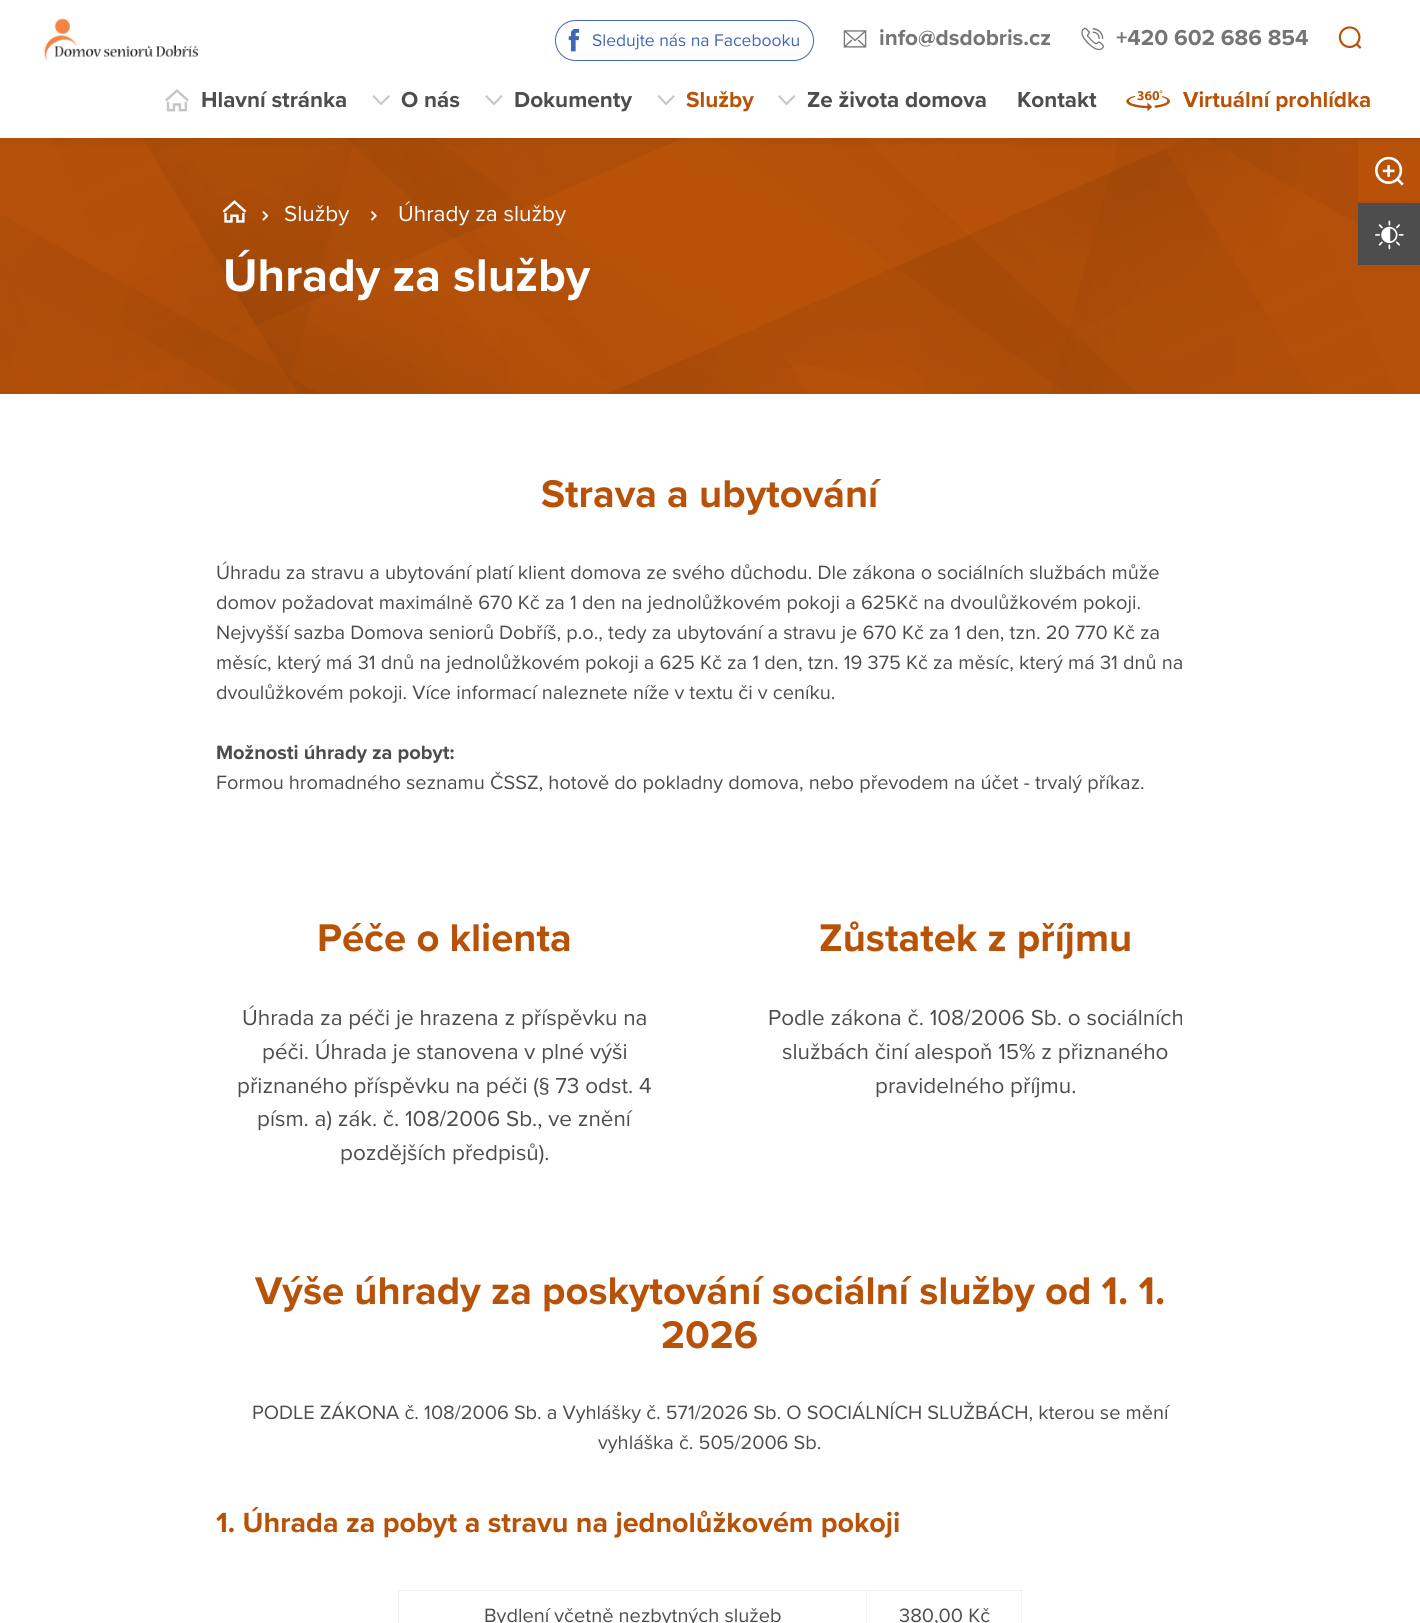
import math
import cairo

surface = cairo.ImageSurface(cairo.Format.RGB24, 1420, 1623)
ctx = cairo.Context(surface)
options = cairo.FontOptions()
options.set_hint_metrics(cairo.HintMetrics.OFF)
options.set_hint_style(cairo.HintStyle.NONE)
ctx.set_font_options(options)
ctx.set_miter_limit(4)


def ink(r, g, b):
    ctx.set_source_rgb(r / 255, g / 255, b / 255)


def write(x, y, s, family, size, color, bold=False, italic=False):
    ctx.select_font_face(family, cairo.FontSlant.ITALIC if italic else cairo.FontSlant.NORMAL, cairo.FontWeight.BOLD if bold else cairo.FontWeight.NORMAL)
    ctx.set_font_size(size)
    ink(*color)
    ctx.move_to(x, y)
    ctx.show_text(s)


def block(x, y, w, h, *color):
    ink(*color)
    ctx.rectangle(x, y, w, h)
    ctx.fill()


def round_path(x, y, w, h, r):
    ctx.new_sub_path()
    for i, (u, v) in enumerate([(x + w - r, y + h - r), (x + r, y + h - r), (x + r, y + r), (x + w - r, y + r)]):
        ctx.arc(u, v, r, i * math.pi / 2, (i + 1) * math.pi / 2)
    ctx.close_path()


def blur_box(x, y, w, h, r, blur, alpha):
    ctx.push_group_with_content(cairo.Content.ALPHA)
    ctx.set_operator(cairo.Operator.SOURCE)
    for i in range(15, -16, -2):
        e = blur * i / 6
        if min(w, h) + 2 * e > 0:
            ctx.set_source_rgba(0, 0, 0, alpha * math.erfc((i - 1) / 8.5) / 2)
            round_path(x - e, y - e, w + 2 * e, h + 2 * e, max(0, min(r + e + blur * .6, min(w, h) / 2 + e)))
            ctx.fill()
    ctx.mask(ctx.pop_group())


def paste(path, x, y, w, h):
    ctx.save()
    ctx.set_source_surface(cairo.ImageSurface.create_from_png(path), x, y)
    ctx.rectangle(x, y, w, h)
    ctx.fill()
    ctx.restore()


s1 = dict(family="Proxima Nova", size=17.5, color=(66, 103, 178))
s2 = dict(family="Proxima Nova", size=22.5, color=(117, 117, 117), bold=True)
s3 = dict(family="Proxima Nova", size=22.5, color=(77, 77, 77), bold=True)
s4 = dict(family="Proxima Nova", size=22.5, color=(184, 82, 9), bold=True)
s5 = dict(family="Proxima Nova", size=22.5, color=(255, 255, 255))
s6 = dict(family="Proxima Nova", size=47.5, color=(255, 255, 255), bold=True)
s7 = dict(family="Proxima Nova", size=40, color=(184, 82, 9), bold=True)
s8 = dict(family="Proxima Nova", size=20, color=(77, 77, 77))
s9 = dict(family="Proxima Nova", size=20, color=(77, 77, 77), bold=True)
s10 = dict(family="Proxima Nova", size=22.5, color=(77, 77, 77))
s11 = dict(family="Proxima Nova", size=28.75, color=(184, 82, 9), bold=True)

ink(255, 255, 255)
ctx.paint()
block(0, 138, 1420, 256, 184, 82, 9)
paste("pic8.png", 0, 138, 1420, 256)
block(1358, 139, 62, 62, 184, 82, 9)
paste("pic12.png", 1375, 156, 29, 30)
ink(0, 0, 0)
blur_box(0, 0, 1420, 138, 0, 6, 0.08)
block(0, 0, 1420, 138, 255, 255, 255)
paste("pic1.png", 44, 18, 154, 44)
round_path(555.5, 20.5, 258, 40, 20)
ink(66, 103, 178)
ctx.set_line_width(1)
ctx.stroke()
paste("pic2.png", 568, 28, 12, 24)
write(592, 46, "Sledujte nás na Facebooku", **s1)
paste("pic3.png", 843, 30, 24, 18)
write(879, 45, "info@dsdobris.cz", **s2)
paste("pic4.png", 1081, 27, 23, 24)
write(1116, 45, "+420 602 686 854", **s2)
paste("pic5.png", 1338, 26, 24, 23)
paste("pic6.png", 165, 89, 24, 23)
write(201, 107, "Hlavní stránka", **s3)
ink(198, 198, 198)
ctx.new_path()
ctx.move_to(381, 105.5)
ctx.line_to(390, 96.5)
ctx.line_to(388.5, 95)
ctx.line_to(381, 102.5)
ctx.line_to(374, 95)
ctx.line_to(372.5, 96.5)
ctx.close_path()
ctx.fill()
write(401, 107, "O nás", **s3)
ink(198, 198, 198)
ctx.new_path()
ctx.move_to(494, 105.5)
ctx.line_to(502.5, 96.5)
ctx.line_to(501, 95)
ctx.line_to(494, 102.5)
ctx.line_to(486.5, 95)
ctx.line_to(485, 96.5)
ctx.close_path()
ctx.fill()
write(514, 107, "Dokumenty", **s3)
ink(198, 198, 198)
ctx.new_path()
ctx.move_to(666, 105.5)
ctx.line_to(675, 96.5)
ctx.line_to(673.5, 95)
ctx.line_to(666, 102.5)
ctx.line_to(659, 95)
ctx.line_to(657.5, 96.5)
ctx.close_path()
ctx.fill()
write(686, 107, "Služby", **s4)
ink(198, 198, 198)
ctx.new_path()
ctx.move_to(786.5, 105.5)
ctx.line_to(795.5, 96.5)
ctx.line_to(794, 95)
ctx.line_to(786.5, 102.5)
ctx.line_to(779.5, 95)
ctx.line_to(778, 96.5)
ctx.close_path()
ctx.fill()
write(807, 107, "Ze života domova", **s3)
write(1017, 107, "Kontakt", **s3)
paste("pic7.png", 1126, 90, 44, 22)
write(1183, 107, "Virtuální prohlídka", **s4)
paste("pic9.png", 223, 200, 24, 23)
paste("pic10.png", 262, 211, 7, 10)
write(284, 221, "Služby", **s5)
paste("pic11.png", 371, 211, 6, 10)
write(398, 221, "Úhrady za služby", **s5)
write(223, 291, "Úhrady za služby", **s6)
write(541, 507, "Strava a ubytování", **s7)
write(216, 579, "Úhradu za stravu a ubytování platí klient domova ze svého důchodu. Dle zákona o sociálních službách může", **s8)
write(216, 609, "domov požadovat maximálně 670 Kč za 1 den na jednolůžkovém pokoji a 625Kč na dvoulůžkovém pokoji.", **s8)
write(216, 639, "Nejvyšší sazba Domova seniorů Dobříš, p.o., tedy za ubytování a stravu je 670 Kč za 1 den, tzn. 20 770 Kč za", **s8)
write(216, 669, "měsíc, který má 31 dnů na jednolůžkovém pokoji a 625 Kč za 1 den, tzn. 19 375 Kč za měsíc, který má 31 dnů na", **s8)
write(216, 699, "dvoulůžkovém pokoji. Více informací naleznete níže v textu či v ceníku.", **s8)
write(216, 759, "Možnosti úhrady za pobyt:", **s9)
write(216, 789, "Formou hromadného seznamu ČSSZ, hotově do pokladny domova, nebo převodem na účet - trvalý příkaz.", **s8)
write(317, 951, "Péče o klienta", **s7)
write(242, 1025, "Úhrada za péči je hrazena z příspěvku na", **s10)
write(262, 1059, "péči. Úhrada je stanovena v plné výši", **s10)
write(237, 1093, "přiznaného příspěvku na péči (§ 73 odst. 4", **s10)
write(257, 1126, "písm. a) zák. č. 108/2006 Sb., ve znění", **s10)
write(340, 1160, "pozdějších předpisů).", **s10)
write(819, 951, "Zůstatek z příjmu", **s7)
write(768, 1025, "Podle zákona č. 108/2006 Sb. o sociálních", **s10)
write(782, 1059, "službách činí alespoň 15% z přiznaného", **s10)
write(875, 1093, "pravidelného příjmu.", **s10)
write(255, 1304, "Výše úhrady za poskytování sociální služby od 1. 1.", **s7)
write(661, 1348, "2026", **s7)
write(252, 1419, "PODLE ZÁKONA č. 108/2006 Sb. a Vyhlášky č. 571/2026 Sb. O SOCIÁLNÍCH SLUŽBÁCH, kterou se mění", **s8)
write(598, 1449, "vyhláška č. 505/2006 Sb.", **s8)
write(216, 1532, "1. Úhrada za pobyt a stravu na jednolůžkovém pokoji", **s11)
block(866, 1590, 157, 1, 241, 241, 241)
block(866, 1590, 1, 33, 241, 241, 241)
block(398, 1590, 470, 1, 241, 241, 241)
block(398, 1590, 1, 33, 241, 241, 241)
write(484, 1622, "Bydlení včetně nezbytných služeb", **s8)
block(1021, 1590, 1, 33, 241, 241, 241)
write(899, 1622, "380,00 Kč", **s8)
block(1358, 203, 62, 62, 77, 77, 77)
paste("pic13.png", 1375, 220, 29, 30)
surface.write_to_png("screenshot.png")
